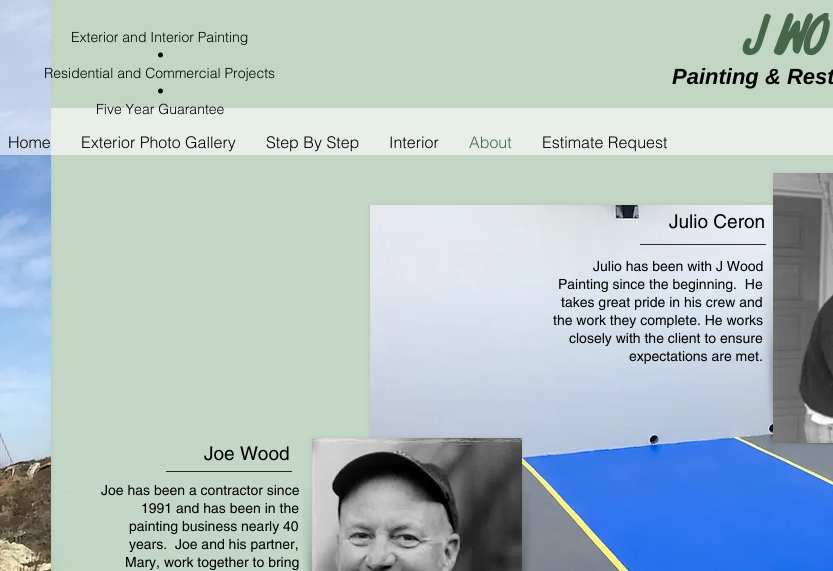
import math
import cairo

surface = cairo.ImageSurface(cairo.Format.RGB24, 833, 571)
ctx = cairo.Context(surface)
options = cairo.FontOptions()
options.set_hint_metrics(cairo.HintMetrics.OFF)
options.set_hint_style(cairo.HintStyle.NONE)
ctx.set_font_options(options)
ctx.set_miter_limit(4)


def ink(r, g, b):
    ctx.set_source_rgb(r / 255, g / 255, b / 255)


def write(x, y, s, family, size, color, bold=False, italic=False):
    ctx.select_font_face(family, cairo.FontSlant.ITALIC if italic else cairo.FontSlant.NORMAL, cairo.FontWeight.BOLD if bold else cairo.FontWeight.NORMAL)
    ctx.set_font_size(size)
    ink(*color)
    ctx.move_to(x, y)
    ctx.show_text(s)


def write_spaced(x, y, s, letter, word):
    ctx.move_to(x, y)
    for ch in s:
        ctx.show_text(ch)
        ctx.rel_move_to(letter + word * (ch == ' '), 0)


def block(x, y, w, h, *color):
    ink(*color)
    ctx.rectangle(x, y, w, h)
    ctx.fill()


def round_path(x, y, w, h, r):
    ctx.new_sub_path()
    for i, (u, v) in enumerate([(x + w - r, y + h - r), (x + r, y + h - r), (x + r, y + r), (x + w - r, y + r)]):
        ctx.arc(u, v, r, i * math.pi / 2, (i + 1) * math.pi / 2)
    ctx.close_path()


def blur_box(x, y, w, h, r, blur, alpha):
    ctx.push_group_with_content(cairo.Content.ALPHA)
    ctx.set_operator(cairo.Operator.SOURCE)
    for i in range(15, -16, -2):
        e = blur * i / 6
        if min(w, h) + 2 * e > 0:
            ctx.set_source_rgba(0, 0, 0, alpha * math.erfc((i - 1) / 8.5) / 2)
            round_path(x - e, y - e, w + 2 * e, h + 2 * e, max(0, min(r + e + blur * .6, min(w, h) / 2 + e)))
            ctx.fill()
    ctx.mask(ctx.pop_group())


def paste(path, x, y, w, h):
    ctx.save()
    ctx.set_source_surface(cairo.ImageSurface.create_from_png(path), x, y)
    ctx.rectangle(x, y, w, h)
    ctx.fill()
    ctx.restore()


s1 = dict(family="helvetica Light", size=14, color=(0, 0, 0))
s2 = dict(family="Liberation Sans", size=22, color=(0, 0, 0), bold=True, italic=True)
s3 = dict(family="helvetica Light", size=16, color=(0, 0, 0))
s4 = dict(family="helvetica Light", size=16, color=(69, 102, 72))
s5 = dict(family="helvetica", size=19, color=(0, 0, 0))
s6 = dict(family="helvetica", size=14, color=(0, 0, 0))

ink(104, 153, 108)
ctx.paint()
block(51, 108, 782, 463, 196, 215, 198)
ink(0, 0, 0)
blur_box(-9, -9, 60, 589, 1, 2.5, 0.1)
paste("pic1.png", 0, 0, 51, 571)
ctx.set_source_rgba(1, 1, 1, 0.6)
ctx.rectangle(0, 0, 833, 155)
ctx.fill()
write(71, 42, "Exterior and Interior Painting", **s1)
write(157, 60, "•", **s1)
write(44, 78, "Residential and Commercial Projects", **s1)
write(157, 96, "•", **s1)
write(96, 114, "Five Year Guarantee", **s1)
ctx.select_font_face("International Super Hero")
ctx.set_font_size(56)
ink(69, 102, 72)
write_spaced(742, 55, "J WO", -3, 0)
write(672, 84, "Painting & Rest", **s2)
write(8, 148, "Home", **s3)
write(81, 148, "Exterior Photo Gallery", **s3)
write(266, 148, "Step By Step", **s3)
write(389, 148, "Interior", **s3)
write(469, 148, "About", **s4)
write(542, 148, "Estimate Request", **s3)
paste("pic2.png", 51, 492, 24, 79)
ink(0, 0, 0)
blur_box(370, 205, 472, 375, 1, 2.5, 0.1)
paste("pic6.png", 370, 205, 463, 366)
blur_box(773, 173, 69, 270, 1, 2.5, 0.1)
paste("pic3.png", 749, 202, 24, 220)
paste("pic4.png", 773, 173, 60, 270)
paste("pic5.png", 786, 443, 47, 2)
write(669, 228, "Julio Ceron", **s5)
ctx.set_source_rgba(0, 0, 0, 0.82)
ctx.rectangle(640, 244, 126, 1)
ctx.fill()
write(593, 271, "Julio has been with J Wood", **s6)
write(558, 289, "Painting since the beginning.  He", **s6)
write(561, 307, "takes great pride in his crew and", **s6)
write(553, 325, "the work they complete. He works", **s6)
write(569, 343, "closely with the client to ensure", **s6)
write(629, 361, "expectations are met.", **s6)
write(204, 460, "Joe Wood", **s5)
ink(0, 0, 0)
blur_box(312, 438, 210, 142, 1, 2.5, 0.1)
paste("pic7.png", 312, 438, 210, 133)
paste("pic8.png", 302, 488, 10, 83)
paste("pic9.png", 522, 492, 9, 79)
block(166, 471, 126, 1, 35, 39, 36)
write(101, 495, "Joe has been a contractor since", **s6)
write(141, 513, "1991 and has been in the", **s6)
write(129, 531, "painting business nearly 40", **s6)
write(129, 549, "years.  Joe and his partner,", **s6)
write(125, 567, "Mary, work together to bring", **s6)
surface.write_to_png("screenshot.png")
